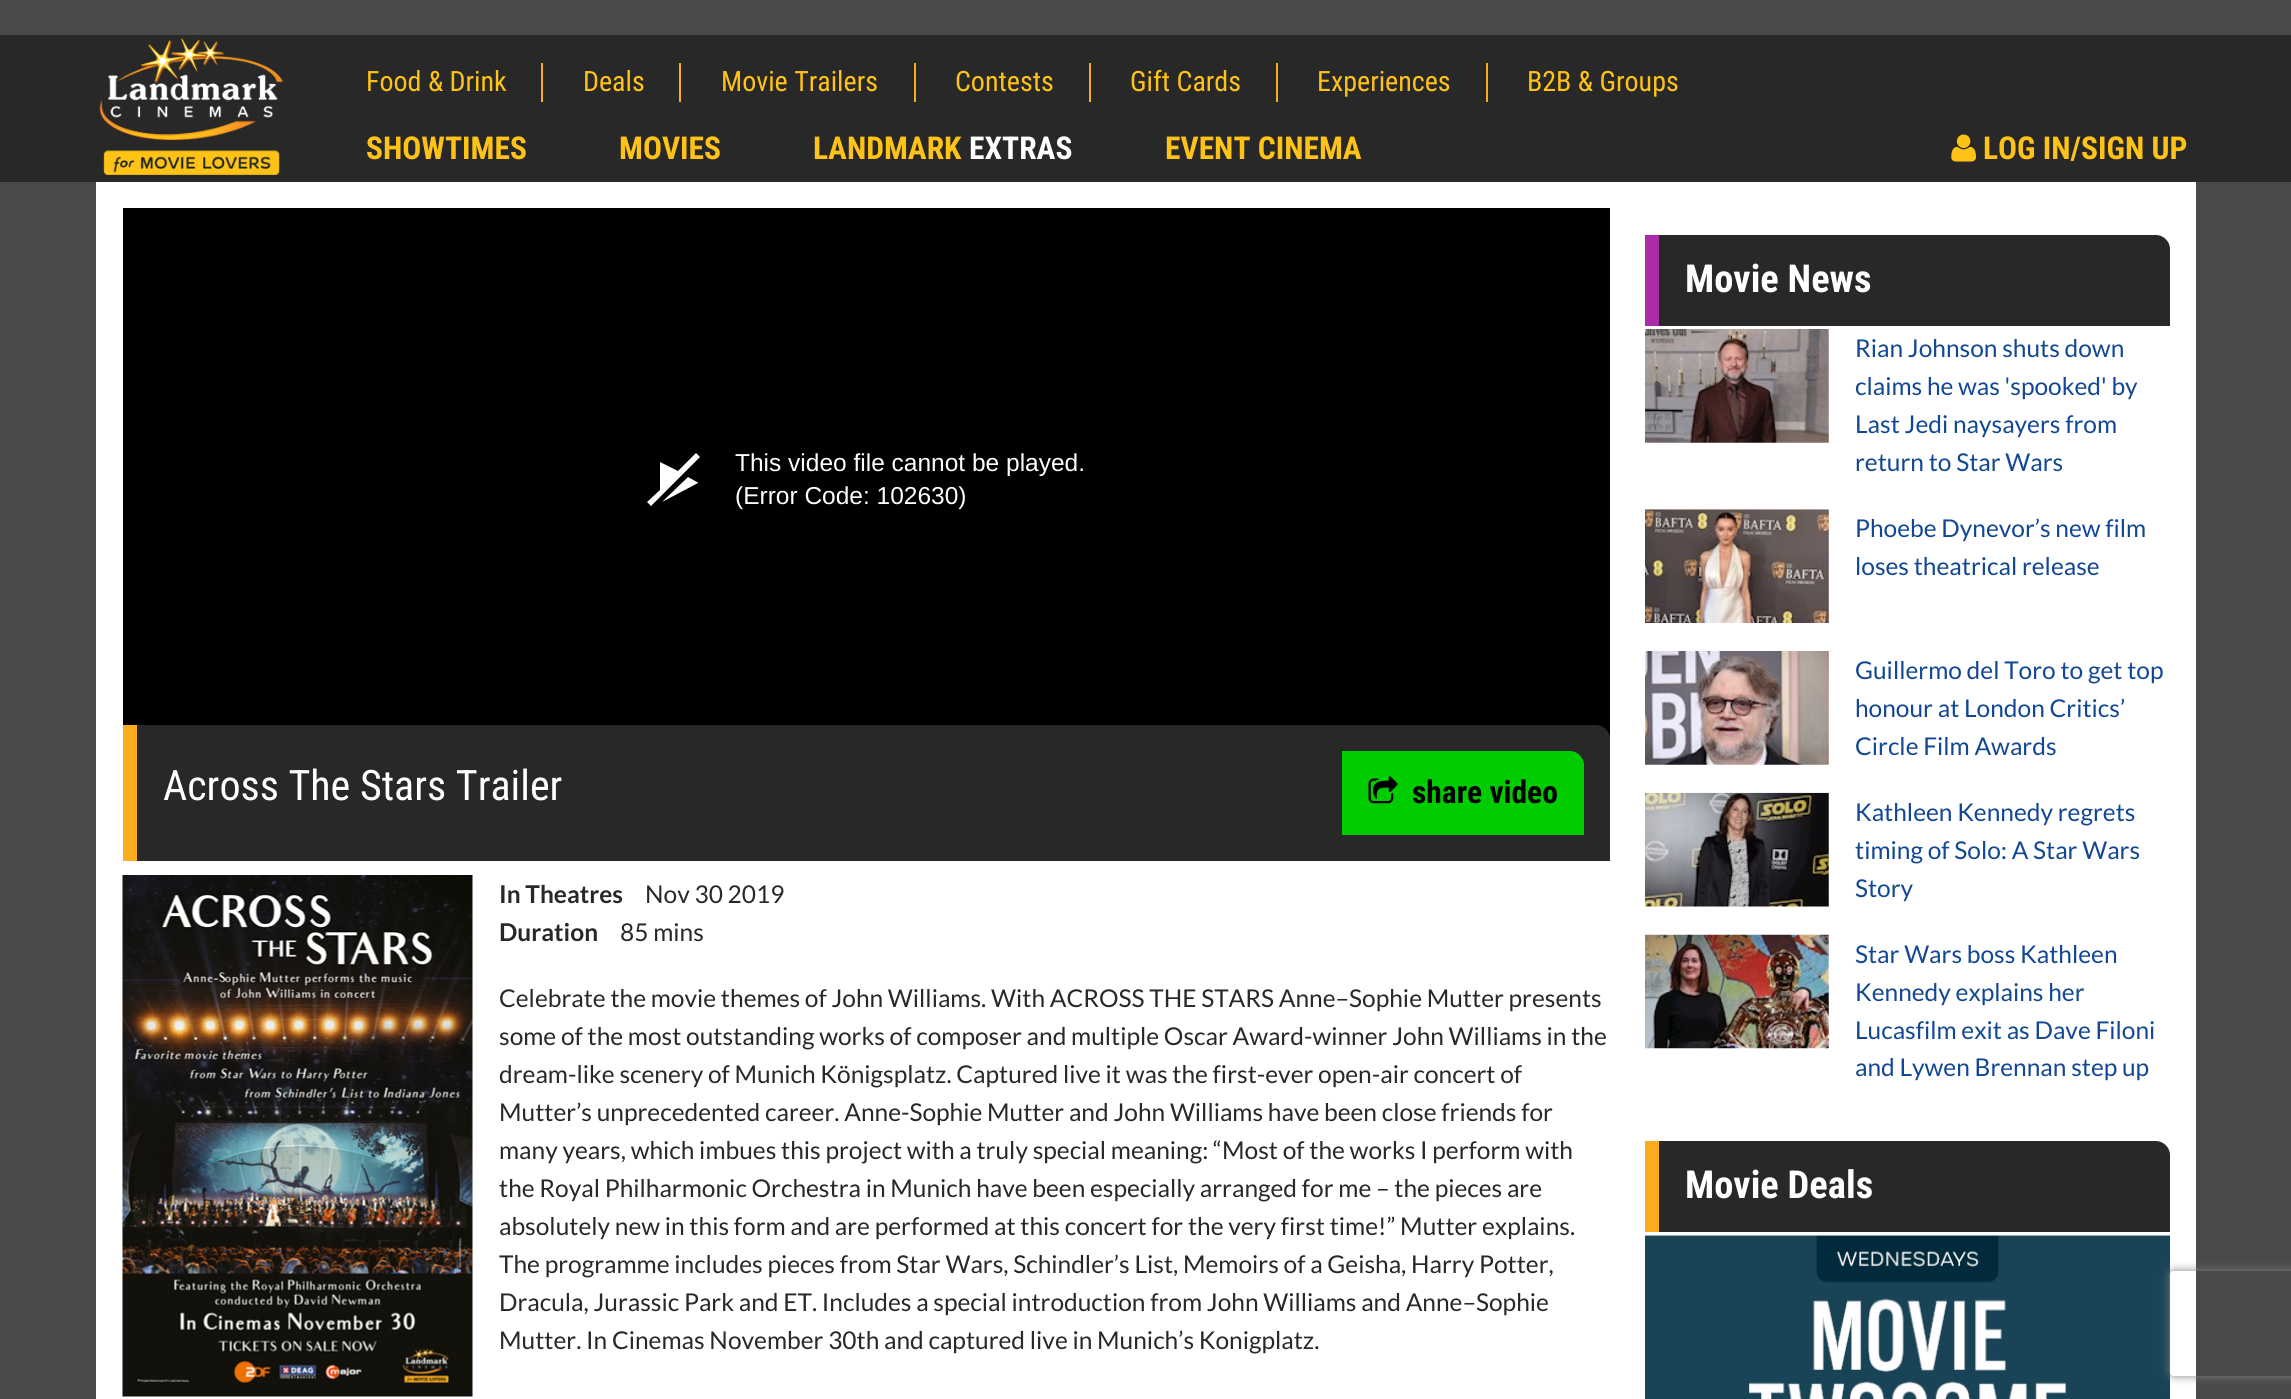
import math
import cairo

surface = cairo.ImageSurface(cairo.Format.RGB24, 2291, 1399)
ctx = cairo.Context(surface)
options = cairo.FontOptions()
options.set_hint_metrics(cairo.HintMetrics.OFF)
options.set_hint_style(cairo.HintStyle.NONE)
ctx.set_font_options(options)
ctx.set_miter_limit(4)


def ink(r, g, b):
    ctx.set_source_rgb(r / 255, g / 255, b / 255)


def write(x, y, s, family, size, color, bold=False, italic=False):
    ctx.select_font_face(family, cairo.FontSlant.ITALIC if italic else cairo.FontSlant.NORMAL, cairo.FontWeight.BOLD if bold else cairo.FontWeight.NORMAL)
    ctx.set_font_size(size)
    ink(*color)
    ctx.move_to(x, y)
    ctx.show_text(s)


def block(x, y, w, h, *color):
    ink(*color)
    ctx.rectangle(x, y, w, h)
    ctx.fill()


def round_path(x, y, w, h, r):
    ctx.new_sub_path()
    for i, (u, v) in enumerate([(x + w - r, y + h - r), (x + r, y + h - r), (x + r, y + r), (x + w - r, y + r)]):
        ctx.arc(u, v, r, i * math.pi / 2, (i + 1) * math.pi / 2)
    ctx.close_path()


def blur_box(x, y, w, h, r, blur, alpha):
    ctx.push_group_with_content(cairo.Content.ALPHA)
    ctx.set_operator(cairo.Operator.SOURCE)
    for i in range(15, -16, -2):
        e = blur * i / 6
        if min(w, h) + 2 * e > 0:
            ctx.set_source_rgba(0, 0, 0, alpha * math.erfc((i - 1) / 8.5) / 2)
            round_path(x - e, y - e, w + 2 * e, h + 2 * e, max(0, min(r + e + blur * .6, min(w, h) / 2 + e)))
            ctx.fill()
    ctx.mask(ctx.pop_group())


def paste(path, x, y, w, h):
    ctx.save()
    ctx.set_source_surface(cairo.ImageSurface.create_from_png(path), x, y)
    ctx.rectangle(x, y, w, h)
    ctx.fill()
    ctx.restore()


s1 = dict(family="Roboto Condensed", size=28, color=(255, 194, 22))
s2 = dict(family="Roboto Condensed", size=31.5, color=(255, 194, 22), bold=True)
s3 = dict(family="Roboto Condensed", size=31.5, color=(255, 255, 255), bold=True)
s4 = dict(family="Liberation Sans", size=24.5, color=(255, 255, 255))
s5 = dict(family="Roboto Condensed", size=42, color=(255, 255, 255))
s6 = dict(family="Roboto Condensed", size=31.5, color=(0, 0, 0), bold=True)
s7 = dict(family="Lato", size=24.5, color=(40, 40, 40), bold=True)
s8 = dict(family="Lato", size=24.5, color=(40, 40, 40))
s9 = dict(family="Roboto Condensed", size=38.5, color=(255, 255, 255), bold=True)
s10 = dict(family="Lato", size=24.5, color=(18, 71, 147))

ink(74, 74, 74)
ctx.paint()
block(0, 35, 2291, 147, 40, 40, 40)
paste("pic1.png", 99, 38, 184, 137)
block(541, 63, 2, 39, 250, 172, 31)
write(366, 91, "Food & Drink", **s1)
block(679, 63, 2, 39, 250, 172, 31)
write(583, 91, "Deals", **s1)
block(914, 63, 2, 39, 250, 172, 31)
write(721, 91, "Movie Trailers", **s1)
block(1089, 63, 2, 39, 250, 172, 31)
write(955, 91, "Contests", **s1)
block(1276, 63, 2, 39, 250, 172, 31)
write(1130, 91, "Gift Cards", **s1)
block(1486, 63, 2, 39, 250, 172, 31)
write(1317, 91, "Experiences", **s1)
write(1527, 91, "B2B & Groups", **s1)
write(366, 159, "SHOWTIMES", **s2)
write(619, 159, "MOVIES", **s2)
write(813, 159, "LANDMARK", **s2)
write(969, 159, "EXTRAS", **s3)
write(1165, 159, "EVENT CINEMA", **s2)
paste("pic2.png", 1951, 134, 25, 28)
write(1983, 159, "LOG IN/SIGN UP", **s2)
block(96, 182, 2100, 1217, 255, 255, 255)
block(123, 208, 1487, 531, 0, 0, 0)
ink(255, 255, 255)
ctx.new_path()
ctx.move_to(698, 483)
ctx.line_to(662, 502)
ctx.line_to(688, 477)
ctx.curve_to(697, 482, 699, 483, 698, 483)
ctx.close_path()
ctx.move_to(696, 453)
ctx.line_to(678, 471)
ctx.line_to(660, 462)
ctx.line_to(660, 490)
ctx.line_to(647, 502)
ctx.line_to(651, 506)
ctx.line_to(700, 457)
ctx.close_path()
ctx.fill()
write(735, 471, "This video file cannot be played.", **s4)
write(735, 504, "(Error Code: 102630)", **s4)
ink(40, 40, 40)
ctx.new_path()
ctx.move_to(123, 725)
ctx.line_to(1596, 725)
ctx.curve_to(1603.5, 725, 1610, 731.5, 1610, 739)
ctx.line_to(1610, 861)
ctx.line_to(123, 861)
ctx.close_path()
ctx.fill()
block(123, 725, 14, 136, 250, 172, 31)
write(163, 800, "Across The Stars Trailer", **s5)
ink(0, 204, 0)
ctx.new_path()
ctx.move_to(1342, 751)
ctx.line_to(1570, 751)
ctx.curve_to(1577.5, 751, 1584, 757.5, 1584, 765)
ctx.line_to(1584, 835)
ctx.line_to(1342, 835)
ctx.close_path()
ctx.fill()
paste("pic3.png", 1368, 776, 30, 28)
write(1412, 803, "share video", **s6)
paste("pic4.png", 122, 875, 351, 522)
write(499, 903, "In Theatres", **s7)
write(645, 903, "Nov 30 2019", **s8)
write(499, 941, "Duration", **s7)
write(620, 941, "85 mins", **s8)
write(499, 1007, "Celebrate the movie themes of John Williams. With ACROSS THE STARS Anne–Sophie Mutter presents", **s8)
write(499, 1045, "some of the most outstanding works of composer and multiple Oscar Award-winner John Williams in the", **s8)
write(499, 1083, "dream-like scenery of Munich Königsplatz. Captured live it was the first-ever open-air concert of", **s8)
write(499, 1121, "Mutter’s unprecedented career. Anne-Sophie Mutter and John Williams have been close friends for", **s8)
write(499, 1159, "many years, which imbues this project with a truly special meaning: “Most of the works I perform with", **s8)
write(499, 1197, "the Royal Philharmonic Orchestra in Munich have been especially arranged for me – the pieces are", **s8)
write(499, 1235, "absolutely new in this form and are performed at this concert for the very first time!” Mutter explains.", **s8)
write(499, 1273, "The programme includes pieces from Star Wars, Schindler’s List, Memoirs of a Geisha, Harry Potter,", **s8)
write(499, 1311, "Dracula, Jurassic Park and ET. Includes a special introduction from John Williams and Anne–Sophie", **s8)
write(499, 1349, "Mutter. In Cinemas November 30th and captured live in Munich’s Konigplatz.", **s8)
ctx.new_path()
ctx.move_to(1645, 235)
ctx.line_to(2156, 235)
ctx.curve_to(2163.5, 235, 2170, 241.5, 2170, 249)
ctx.line_to(2170, 326)
ctx.line_to(1645, 326)
ctx.close_path()
ctx.fill()
block(1645, 235, 14, 91, 171, 44, 167)
write(1685, 292, "Movie News", **s9)
paste("pic5.png", 1645, 329, 184, 114)
write(1855, 357, "Rian Johnson shuts down", **s10)
write(1855, 395, "claims he was 'spooked' by", **s10)
write(1855, 433, "Last Jedi naysayers from", **s10)
write(1855, 471, "return to Star Wars", **s10)
paste("pic6.png", 1645, 509, 184, 114)
write(1855, 537, "Phoebe Dynevor’s new film", **s10)
write(1855, 575, "loses theatrical release", **s10)
paste("pic7.png", 1645, 651, 184, 114)
write(1855, 679, "Guillermo del Toro to get top", **s10)
write(1855, 717, "honour at London Critics’", **s10)
write(1855, 755, "Circle Film Awards", **s10)
paste("pic8.png", 1645, 792, 184, 115)
write(1855, 821, "Kathleen Kennedy regrets", **s10)
write(1855, 859, "timing of Solo: A Star Wars", **s10)
write(1855, 897, "Story", **s10)
paste("pic9.png", 1645, 934, 184, 115)
write(1855, 963, "Star Wars boss Kathleen", **s10)
write(1855, 1001, "Kennedy explains her", **s10)
write(1855, 1039, "Lucasfilm exit as Dave Filoni", **s10)
write(1855, 1076, "and Lywen Brennan step up", **s10)
ink(40, 40, 40)
ctx.new_path()
ctx.move_to(1645, 1141)
ctx.line_to(2156, 1141)
ctx.curve_to(2163.5, 1141, 2170, 1147.5, 2170, 1155)
ctx.line_to(2170, 1232)
ctx.line_to(1645, 1232)
ctx.close_path()
ctx.fill()
block(1645, 1141, 14, 91, 250, 172, 31)
write(1685, 1198, "Movie Deals", **s9)
paste("pic10.png", 1645, 1235, 525, 164)
ctx.save()
ctx.set_fill_rule(cairo.FillRule.EVEN_ODD)
ctx.new_path()
ctx.move_to(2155, 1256)
ctx.line_to(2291, 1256)
ctx.line_to(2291, 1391)
ctx.line_to(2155, 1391)
ctx.close_path()
ctx.move_to(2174, 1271)
ctx.line_to(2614, 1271)
ctx.curve_to(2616, 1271, 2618, 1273, 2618, 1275)
ctx.line_to(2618, 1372)
ctx.curve_to(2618, 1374, 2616, 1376, 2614, 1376)
ctx.line_to(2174, 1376)
ctx.curve_to(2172, 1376, 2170, 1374, 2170, 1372)
ctx.line_to(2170, 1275)
ctx.curve_to(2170, 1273, 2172, 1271, 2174, 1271)
ctx.close_path()
ctx.clip()
ink(128, 128, 128)
blur_box(2170, 1271, 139, 105, 4, 4.5, 1)
ctx.restore()
surface.write_to_png("screenshot.png")
